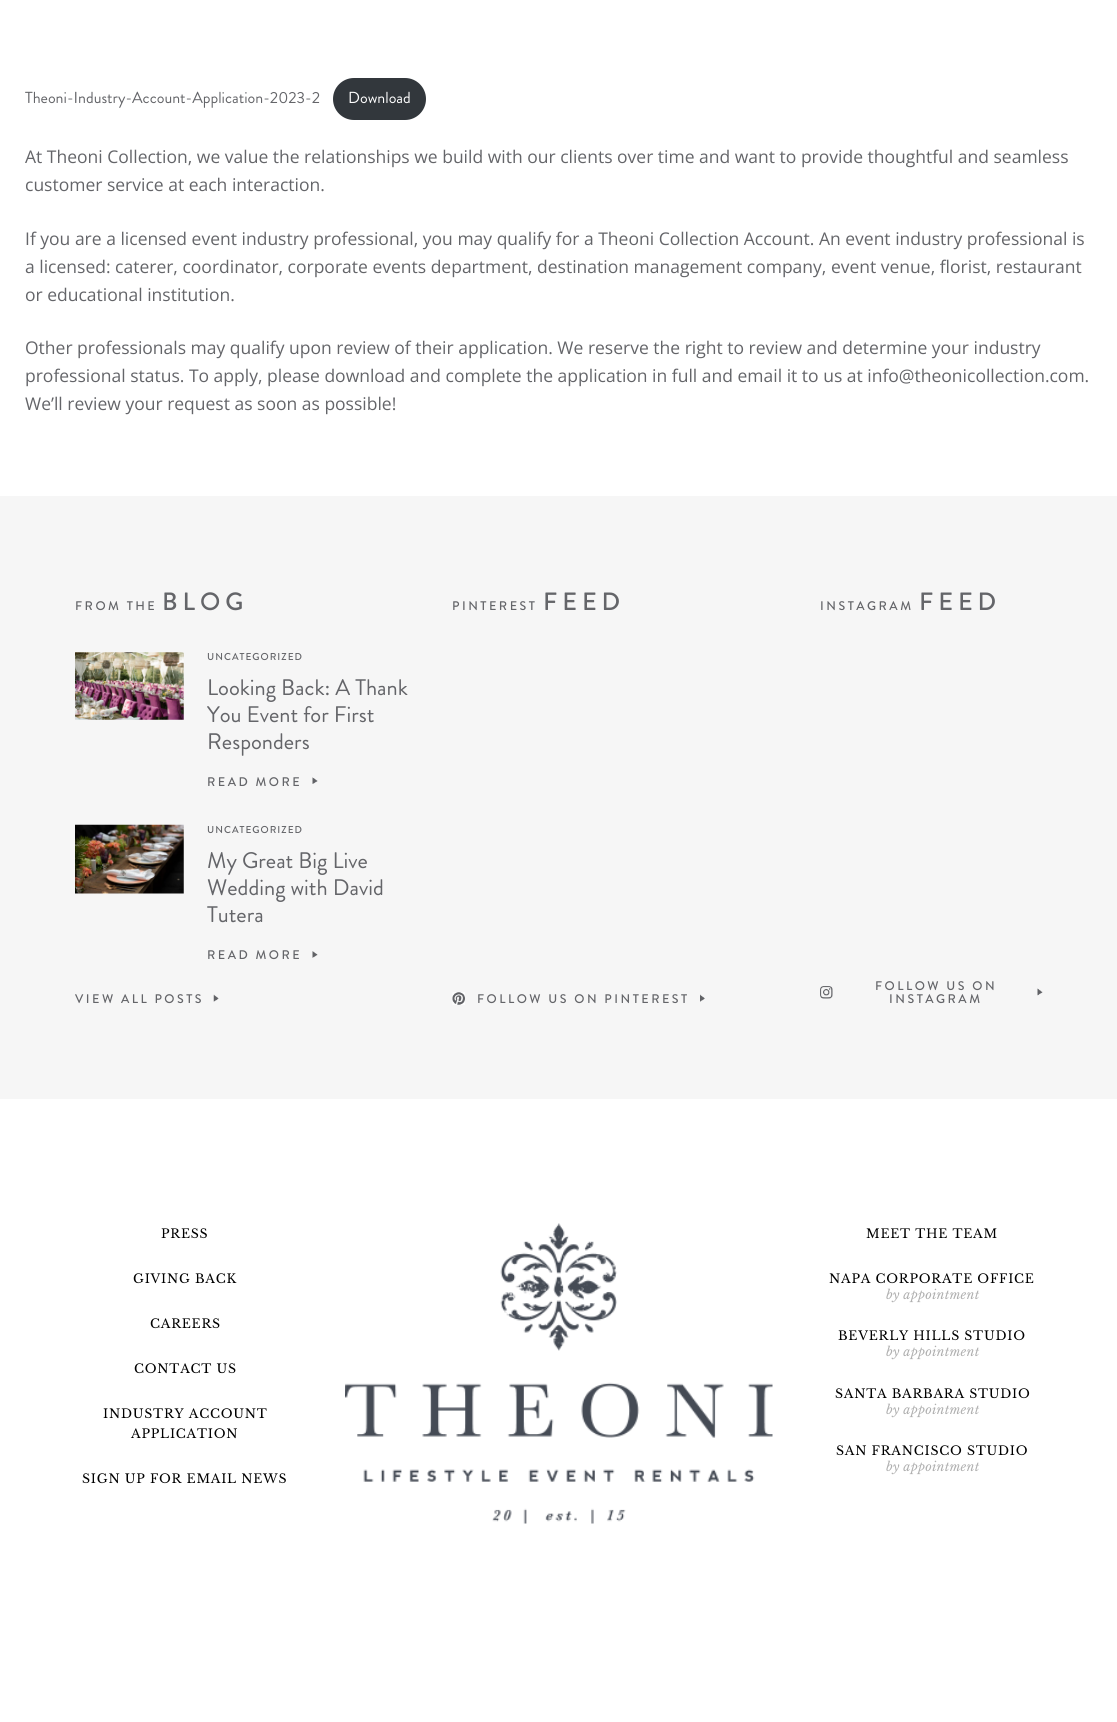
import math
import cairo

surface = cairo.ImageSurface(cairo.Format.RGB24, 1117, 1722)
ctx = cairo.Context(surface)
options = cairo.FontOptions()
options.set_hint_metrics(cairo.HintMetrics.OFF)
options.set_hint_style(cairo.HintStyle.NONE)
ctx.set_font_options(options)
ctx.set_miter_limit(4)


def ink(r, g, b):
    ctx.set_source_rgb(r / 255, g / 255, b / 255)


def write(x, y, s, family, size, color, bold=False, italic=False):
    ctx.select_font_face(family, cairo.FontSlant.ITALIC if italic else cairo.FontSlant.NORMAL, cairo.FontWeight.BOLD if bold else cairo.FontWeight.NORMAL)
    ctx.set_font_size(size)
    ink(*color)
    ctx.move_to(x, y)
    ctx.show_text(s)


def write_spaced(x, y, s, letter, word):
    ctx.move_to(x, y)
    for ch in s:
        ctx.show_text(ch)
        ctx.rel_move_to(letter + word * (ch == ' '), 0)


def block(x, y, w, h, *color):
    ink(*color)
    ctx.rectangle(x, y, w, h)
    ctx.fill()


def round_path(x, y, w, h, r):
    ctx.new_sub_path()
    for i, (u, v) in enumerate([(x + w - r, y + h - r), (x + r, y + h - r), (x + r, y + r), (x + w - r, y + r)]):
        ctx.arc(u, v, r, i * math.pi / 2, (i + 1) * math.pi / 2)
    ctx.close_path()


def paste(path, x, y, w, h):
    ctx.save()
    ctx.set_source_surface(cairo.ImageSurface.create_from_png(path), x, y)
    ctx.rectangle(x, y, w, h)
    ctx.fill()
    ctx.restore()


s1 = dict(family="Brandon Grotesque", size=16, color=(100, 101, 105))
s2 = dict(family="Brandon Grotesque", size=16, color=(255, 255, 255))
s3 = dict(family="Open Sans", size=17.5, color=(100, 101, 105))
s4 = dict(family="Brandon Grotesque", size=22.5, color=(100, 101, 105))

ink(255, 255, 255)
ctx.paint()
write(25, 103, "Theoni-Industry-Account-Application-2023-2", **s1)
ink(50, 55, 60)
round_path(333, 78, 93, 42, 21)
ctx.fill()
write(348, 103, "Download", **s2)
write(25, 163, "At Theoni Collection, we value the relationships we build with our clients over time and want to provide thoughtful and seamless", **s3)
write(25, 191, "customer service at each interaction.", **s3)
write(25, 245, "If you are a licensed event industry professional, you may qualify for a Theoni Collection Account. An event industry professional is", **s3)
write(25, 273, "a licensed: caterer, coordinator, corporate events department, destination management company, event venue, florist, restaurant", **s3)
write(25, 301, "or educational institution.", **s3)
write(25, 354, "Other professionals may qualify upon review of their application. We reserve the right to review and determine your industry", **s3)
write(25, 382, "professional status. To apply, please download and complete the application in full and email it to us at info@theonicollection.com.", **s3)
write(25, 410, "We’ll review your request as soon as possible!", **s3)
block(0, 496, 1117, 603, 246, 246, 246)
ctx.select_font_face("Brandon Grotesque Medium")
ctx.set_font_size(12.5)
ink(100, 101, 105)
write_spaced(75, 610, "FROM THE", 2.5, 0)
ctx.set_font_size(25)
write_spaced(162, 610, "BLOG", 5, 0)
paste("pic1.png", 75, 652, 109, 68)
ctx.set_font_size(10)
write_spaced(207, 660, "UNCATEGORIZED", 1, 0)
write(207, 695, "Looking Back: A Thank", **s4)
write(207, 722, "You Event for First", **s4)
write(207, 749, "Responders", **s4)
paste("pic2.png", 312, 777, 6, 7)
ctx.select_font_face("Brandon Grotesque Medium")
ctx.set_font_size(12.5)
write_spaced(207, 786, "READ MORE", 2.5, 0)
paste("pic3.png", 75, 824, 109, 70)
ctx.set_font_size(10)
write_spaced(207, 833, "UNCATEGORIZED", 1, 0)
write(207, 868, "My Great Big Live", **s4)
write(207, 895, "Wedding with David", **s4)
write(207, 922, "Tutera", **s4)
paste("pic4.png", 312, 951, 6, 7)
ctx.select_font_face("Brandon Grotesque Medium")
ctx.set_font_size(12.5)
write_spaced(207, 959, "READ MORE", 2.5, 0)
paste("pic5.png", 213, 994, 6, 8)
write_spaced(75, 1003, "VIEW ALL POSTS", 2.5, 0)
write_spaced(452, 610, "PINTEREST", 2.5, 0)
ctx.set_font_size(25)
write_spaced(543, 610, "FEED", 5, 0)
paste("pic6.png", 700, 994, 5, 8)
paste("pic7.png", 452, 992, 13, 13)
ctx.set_font_size(12.5)
write_spaced(477, 1003, "FOLLOW US ON PINTEREST", 2.5, 0)
write_spaced(820, 610, "INSTAGRAM", 2.5, 0)
ctx.set_font_size(25)
write_spaced(919, 610, "FEED", 5, 0)
paste("pic8.png", 1037, 988, 6, 8)
paste("pic9.png", 820, 986, 13, 13)
ctx.set_font_size(12.5)
write_spaced(875, 990, "FOLLOW US ON", 2.5, 0)
write_spaced(889, 1003, "INSTAGRAM", 2.5, 0)
ctx.select_font_face("Libre Baskerville")
ink(0, 0, 0)
write_spaced(161, 1238, "PRESS", 0.75, 0)
write_spaced(133, 1283, "GIVING BACK", 0.75, 0)
write_spaced(150, 1328, "CAREERS", 0.75, 0)
write_spaced(134, 1373, "CONTACT US", 0.75, 0)
write_spaced(103, 1418, "INDUSTRY ACCOUNT", 0.75, 0)
write_spaced(131, 1438, "APPLICATION", 0.75, 0)
write_spaced(82, 1483, "SIGN UP FOR EMAIL NEWS", 0.75, 0)
paste("pic10.png", 345, 1223, 428, 301)
write_spaced(866, 1238, "MEET THE TEAM", 0.75, 0)
write_spaced(829, 1283, "NAPA CORPORATE OFFICE", 0.75, 0)
ctx.select_font_face("Libre Baskerville", cairo.FontSlant.ITALIC)
ink(176, 176, 176)
write_spaced(886, 1299, "by appointment", 0.25, 0)
ctx.select_font_face("Libre Baskerville")
ink(0, 0, 0)
write_spaced(838, 1340, "BEVERLY HILLS STUDIO", 0.75, 0)
ctx.select_font_face("Libre Baskerville", cairo.FontSlant.ITALIC)
ink(176, 176, 176)
write_spaced(886, 1356, "by appointment", 0.25, 0)
ctx.select_font_face("Libre Baskerville")
ink(0, 0, 0)
write_spaced(835, 1398, "SANTA BARBARA STUDIO", 0.75, 0)
ctx.select_font_face("Libre Baskerville", cairo.FontSlant.ITALIC)
ink(176, 176, 176)
write_spaced(886, 1414, "by appointment", 0.25, 0)
ctx.select_font_face("Libre Baskerville")
ink(0, 0, 0)
write_spaced(836, 1455, "SAN FRANCISCO STUDIO", 0.75, 0)
ctx.select_font_face("Libre Baskerville", cairo.FontSlant.ITALIC)
ink(176, 176, 176)
write_spaced(886, 1471, "by appointment", 0.25, 0)
surface.write_to_png("screenshot.png")
